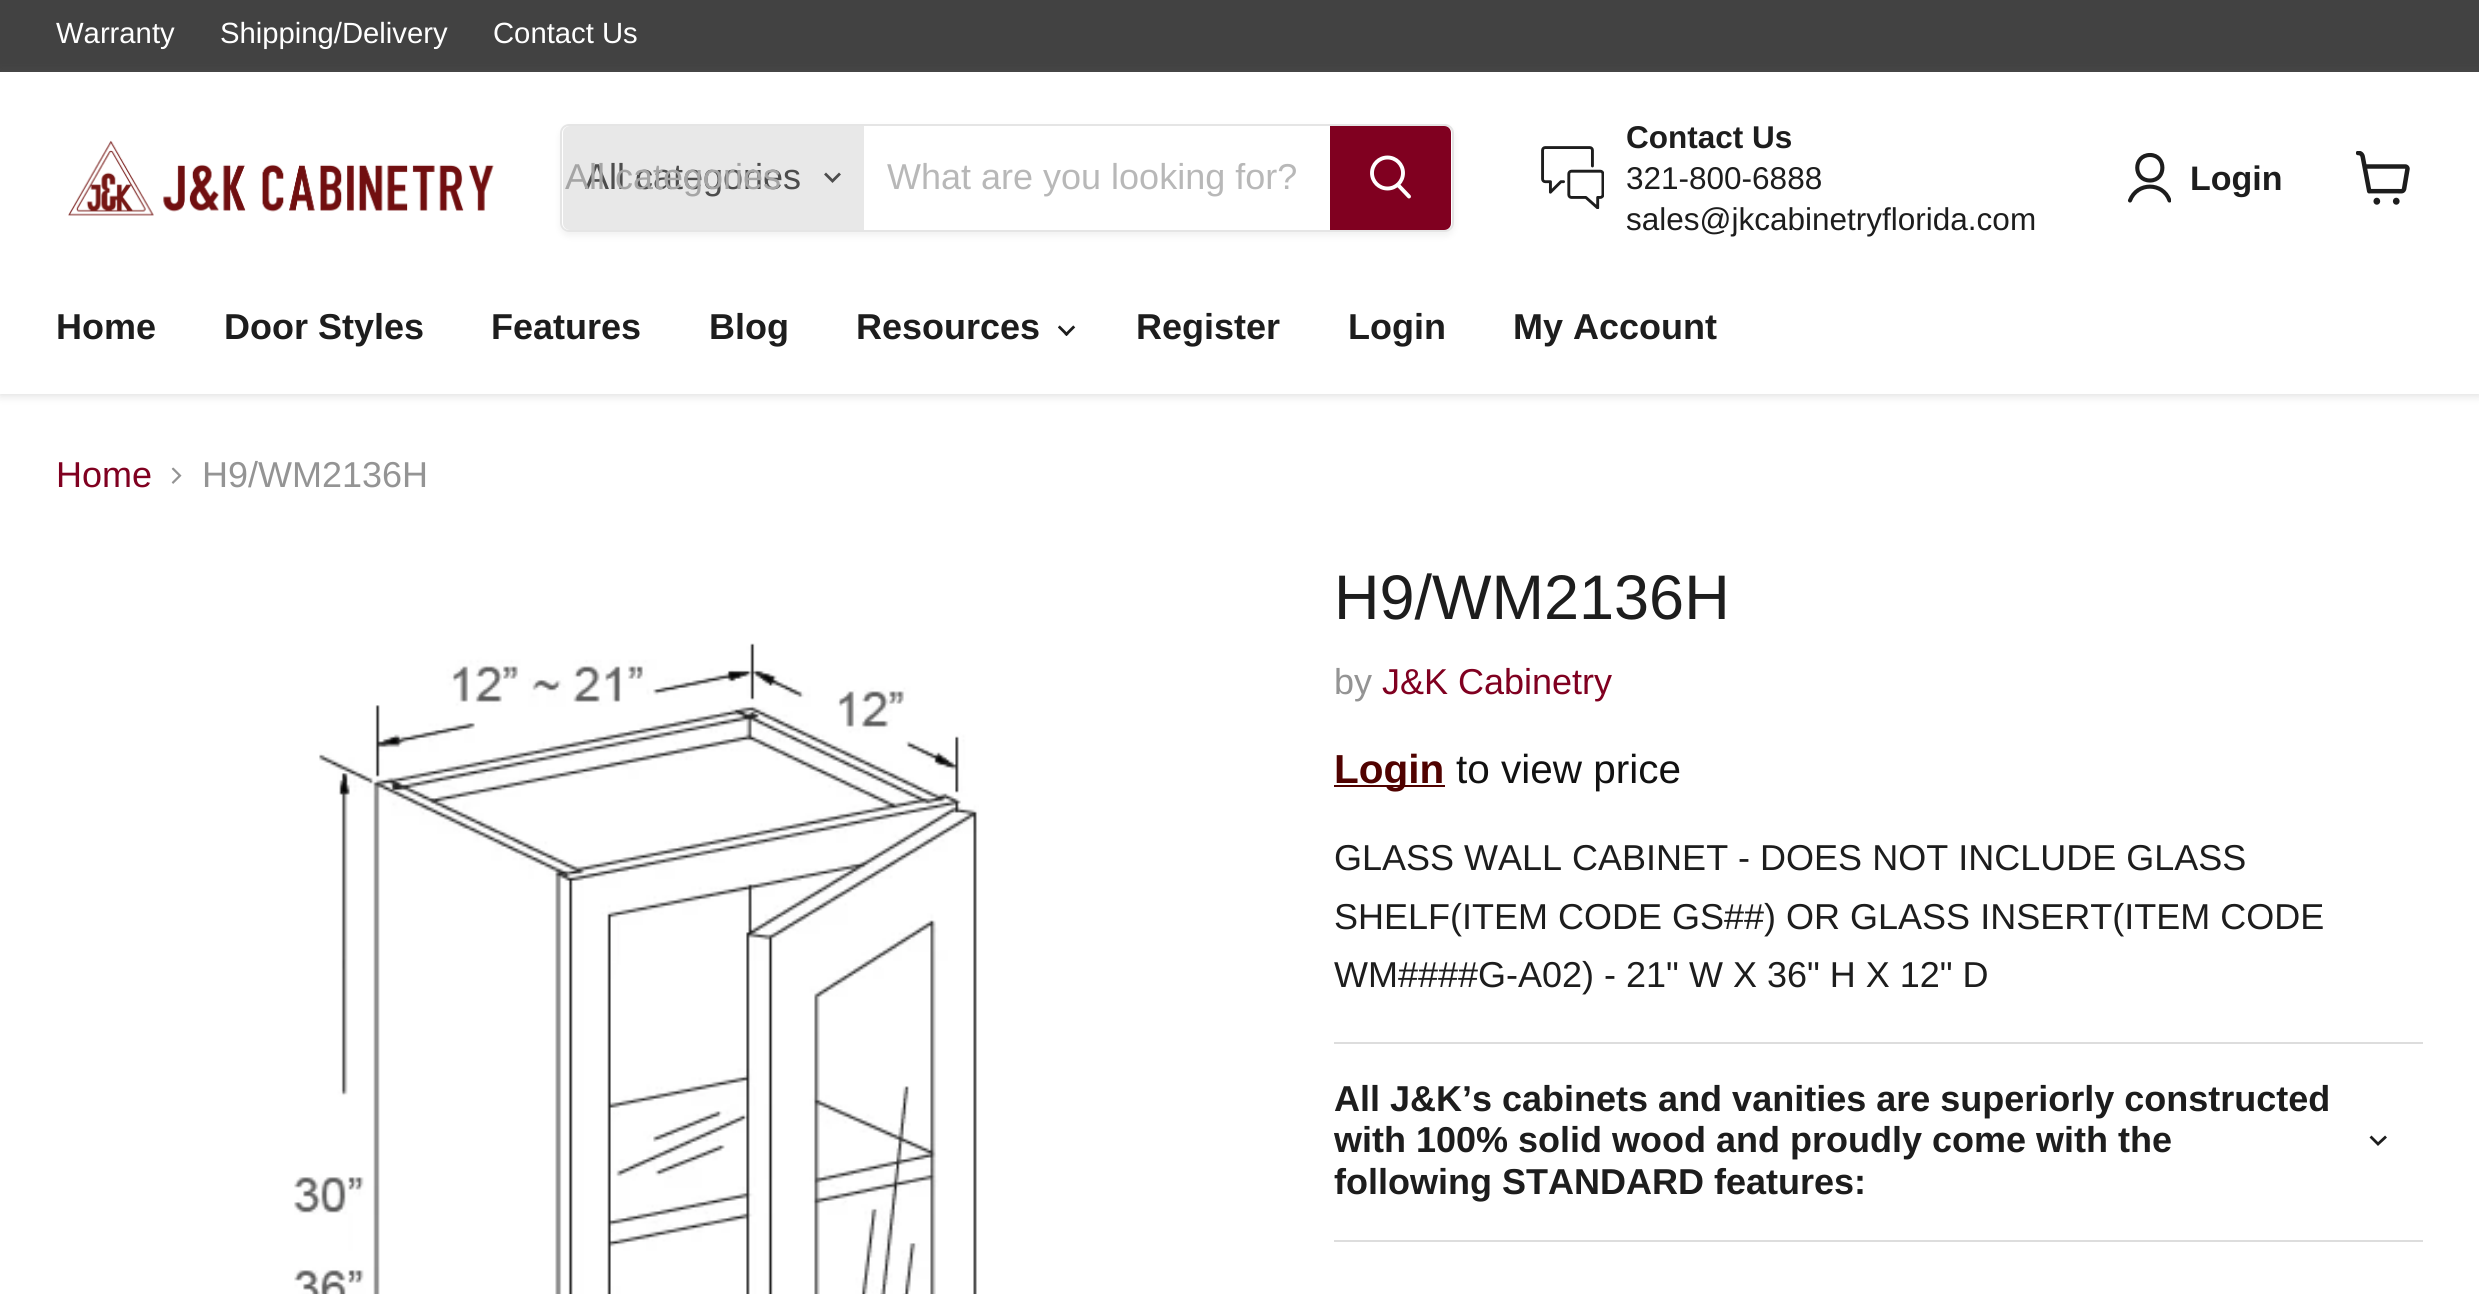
import math
import cairo

surface = cairo.ImageSurface(cairo.Format.RGB24, 2479, 1294)
ctx = cairo.Context(surface)
options = cairo.FontOptions()
options.set_hint_metrics(cairo.HintMetrics.OFF)
options.set_hint_style(cairo.HintStyle.NONE)
ctx.set_font_options(options)
ctx.set_miter_limit(4)


def ink(r, g, b):
    ctx.set_source_rgb(r / 255, g / 255, b / 255)


def write(x, y, s, family, size, color, bold=False, italic=False):
    ctx.select_font_face(family, cairo.FontSlant.ITALIC if italic else cairo.FontSlant.NORMAL, cairo.FontWeight.BOLD if bold else cairo.FontWeight.NORMAL)
    ctx.set_font_size(size)
    ink(*color)
    ctx.move_to(x, y)
    ctx.show_text(s)


def block(x, y, w, h, *color):
    ink(*color)
    ctx.rectangle(x, y, w, h)
    ctx.fill()


def round_path(x, y, w, h, r):
    ctx.new_sub_path()
    for i, (u, v) in enumerate([(x + w - r, y + h - r), (x + r, y + h - r), (x + r, y + r), (x + w - r, y + r)]):
        ctx.arc(u, v, r, i * math.pi / 2, (i + 1) * math.pi / 2)
    ctx.close_path()


def blur_box(x, y, w, h, r, blur, alpha):
    ctx.push_group_with_content(cairo.Content.ALPHA)
    ctx.set_operator(cairo.Operator.SOURCE)
    for i in range(15, -16, -2):
        e = blur * i / 6
        if min(w, h) + 2 * e > 0:
            ctx.set_source_rgba(0, 0, 0, alpha * math.erfc((i - 1) / 8.5) / 2)
            round_path(x - e, y - e, w + 2 * e, h + 2 * e, max(0, min(r + e + blur * .6, min(w, h) / 2 + e)))
            ctx.fill()
    ctx.mask(ctx.pop_group())


def paste(path, x, y, w, h):
    ctx.save()
    ctx.set_source_surface(cairo.ImageSurface.create_from_png(path), x, y)
    ctx.rectangle(x, y, w, h)
    ctx.fill()
    ctx.restore()


s1 = dict(family="Liberation Sans", size=29.25, color=(255, 255, 255))
s2 = dict(family="Liberation Sans", size=36, color=(77, 77, 77))
s3 = dict(family="Liberation Sans", size=36, color=(165, 165, 165))
s4 = dict(family="Liberation Sans", size=36, color=(184, 184, 184))
s5 = dict(family="Liberation Sans", size=31.5, color=(29, 29, 29), bold=True)
s6 = dict(family="Liberation Sans", size=31.5, color=(29, 29, 29))
s7 = dict(family="Liberation Sans", size=34, color=(29, 29, 29), bold=True)
s8 = dict(family="Liberation Sans", size=36, color=(29, 29, 29), bold=True)
s9 = dict(family="Liberation Sans", size=36, color=(128, 0, 32))
s10 = dict(family="Liberation Sans", size=36, color=(148, 148, 148))
s11 = dict(family="Liberation Sans", size=63, color=(29, 29, 29))
s12 = dict(family="Liberation Sans", size=40.5, color=(80, 2, 0), bold=True)
s13 = dict(family="Liberation Sans", size=40.5, color=(17, 17, 17))
s14 = dict(family="Liberation Sans", size=36, color=(29, 29, 29))

ink(255, 255, 255)
ctx.paint()
block(0, 0, 2479, 72, 66, 66, 66)
write(56, 43, "Warranty", **s1)
write(220, 43, "Shipping/Delivery", **s1)
write(493, 43, "Contact Us", **s1)
ink(128, 128, 128)
blur_box(0, 74, 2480, 322, 0, 4.5, 0.25)
block(0, 72, 2479, 322, 255, 255, 255)
paste("pic1.png", 68, 140, 426, 76)
ctx.save()
ctx.set_fill_rule(cairo.FillRule.EVEN_ODD)
ctx.new_path()
ctx.move_to(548, 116)
ctx.line_to(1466, 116)
ctx.line_to(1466, 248)
ctx.line_to(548, 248)
ctx.close_path()
ctx.move_to(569, 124)
ctx.line_to(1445, 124)
ctx.curve_to(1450, 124, 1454, 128, 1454, 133)
ctx.line_to(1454, 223)
ctx.curve_to(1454, 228, 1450, 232, 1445, 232)
ctx.line_to(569, 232)
ctx.curve_to(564, 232, 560, 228, 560, 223)
ctx.line_to(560, 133)
ctx.curve_to(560, 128, 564, 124, 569, 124)
ctx.close_path()
ctx.clip()
ink(128, 128, 128)
blur_box(560, 128, 894, 108, 9, 3.5, 0.11)
ctx.restore()
round_path(561, 125, 892, 106, 8)
ctx.set_source_rgba(0.502, 0.502, 0.502, 0.2)
ctx.stroke()
ink(232, 232, 232)
ctx.new_path()
ctx.move_to(570, 126)
ctx.line_to(864, 126)
ctx.line_to(864, 230)
ctx.line_to(570, 230)
ctx.curve_to(566, 230, 563, 227, 563, 223)
ctx.line_to(563, 133)
ctx.curve_to(563, 129, 566, 126, 570, 126)
ctx.close_path()
ctx.fill()
write(585, 189, "All categories", **s2)
write(565, 189, "All categories", **s3)
ctx.new_path()
ctx.move_to(832.5, 181)
ctx.line_to(839, 174.5)
ctx.move_to(832.5, 181)
ctx.line_to(826, 174.5)
ink(77, 77, 77)
ctx.set_line_width(2.8)
ctx.set_line_cap(cairo.LineCap.SQUARE)
ctx.stroke()
write(887, 189, "What are you looking for?", **s4)
ink(128, 0, 32)
ctx.new_path()
ctx.move_to(1331, 127)
ctx.line_to(1444, 127)
ctx.curve_to(1447.5, 127, 1450, 129.5, 1450, 133)
ctx.line_to(1450, 223)
ctx.curve_to(1450, 226.5, 1447.5, 229, 1444, 229)
ctx.line_to(1331, 229)
ctx.close_path()
ctx.fill_preserve()
ctx.set_line_width(2)
ctx.set_line_cap(cairo.LineCap.BUTT)
ctx.stroke()
ctx.new_path()
ctx.move_to(1409, 196.5)
ctx.line_to(1398.5, 185.5)
ink(255, 255, 255)
ctx.set_line_width(3.9)
ctx.set_line_cap(cairo.LineCap.ROUND)
ctx.stroke()
ctx.arc(1387.5, 173, 15.5, 0, 2 * math.pi)
ctx.set_line_cap(cairo.LineCap.BUTT)
ctx.stroke()
paste("pic2.png", 1541, 146, 63, 63)
write(1626, 148, "Contact Us", **s5)
write(1626, 189, "321-800-6888", **s6)
write(1626, 230, "sales@jkcabinetryflorida.com", **s6)
ctx.new_path()
ctx.move_to(2150, 180.5)
ctx.curve_to(2166.5, 180.5, 2166.5, 155, 2150, 155)
ctx.curve_to(2133, 155, 2133, 180.5, 2150, 180.5)
ctx.close_path()
ctx.set_line_width(4.1)
ctx.set_line_cap(cairo.LineCap.ROUND)
ctx.set_line_join(cairo.LineJoin.ROUND)
ctx.stroke()
ctx.save()
ctx.rectangle(2126, 151, 45, 54)
ctx.clip()
ctx.new_path()
ctx.move_to(2169.5, 200.5)
ctx.curve_to(2163, 182, 2137, 182, 2130, 200.5)
ctx.stroke()
ctx.restore()
write(2190, 190, "Login", **s7)
paste("pic3.png", 2356, 151, 54, 54)
write(56, 339, "Home", **s8)
write(224, 339, "Door Styles", **s8)
write(491, 339, "Features", **s8)
write(709, 339, "Blog", **s8)
write(856, 339, "Resources", **s8)
paste("pic4.png", 1058, 325, 18, 11)
write(1136, 339, "Register", **s8)
write(1348, 339, "Login", **s8)
write(1513, 339, "My Account", **s8)
write(56, 487, "Home", **s9)
paste("pic5.png", 171, 467, 11, 17)
write(202, 487, "H9/WM2136H", **s10)
paste("pic6.png", 294, 643, 685, 651)
write(1334, 619, "H9/WM2136H", **s11)
write(1334, 694, "by", **s10)
write(1382, 694, "J&K Cabinetry", **s9)
block(1334, 785, 111, 2, 80, 2, 0)
write(1334, 783, "Login", **s12)
write(1456, 783, "to view price", **s13)
write(1334, 870, "GLASS WALL CABINET - DOES NOT INCLUDE GLASS", **s14)
write(1334, 929, "SHELF(ITEM CODE GS##) OR GLASS INSERT(ITEM CODE", **s14)
write(1334, 987, "WM####G-A02) - 21\" W X 36\" H X 12\" D", **s14)
block(1334, 1042, 1089, 2, 221, 221, 221)
block(1334, 1240, 1089, 2, 221, 221, 221)
write(1334, 1111, "All J&K’s cabinets and vanities are superiorly constructed", **s8)
write(1334, 1152, "with 100% solid wood and proudly come with the", **s8)
write(1334, 1194, "following STANDARD features:", **s8)
ctx.new_path()
ctx.move_to(2378, 1144)
ctx.line_to(2385, 1137.5)
ctx.move_to(2378, 1144)
ctx.line_to(2371.5, 1137.5)
ctx.set_line_width(2.8)
ctx.set_line_cap(cairo.LineCap.SQUARE)
ctx.set_line_join(cairo.LineJoin.MITER)
ctx.stroke()
surface.write_to_png("screenshot.png")
